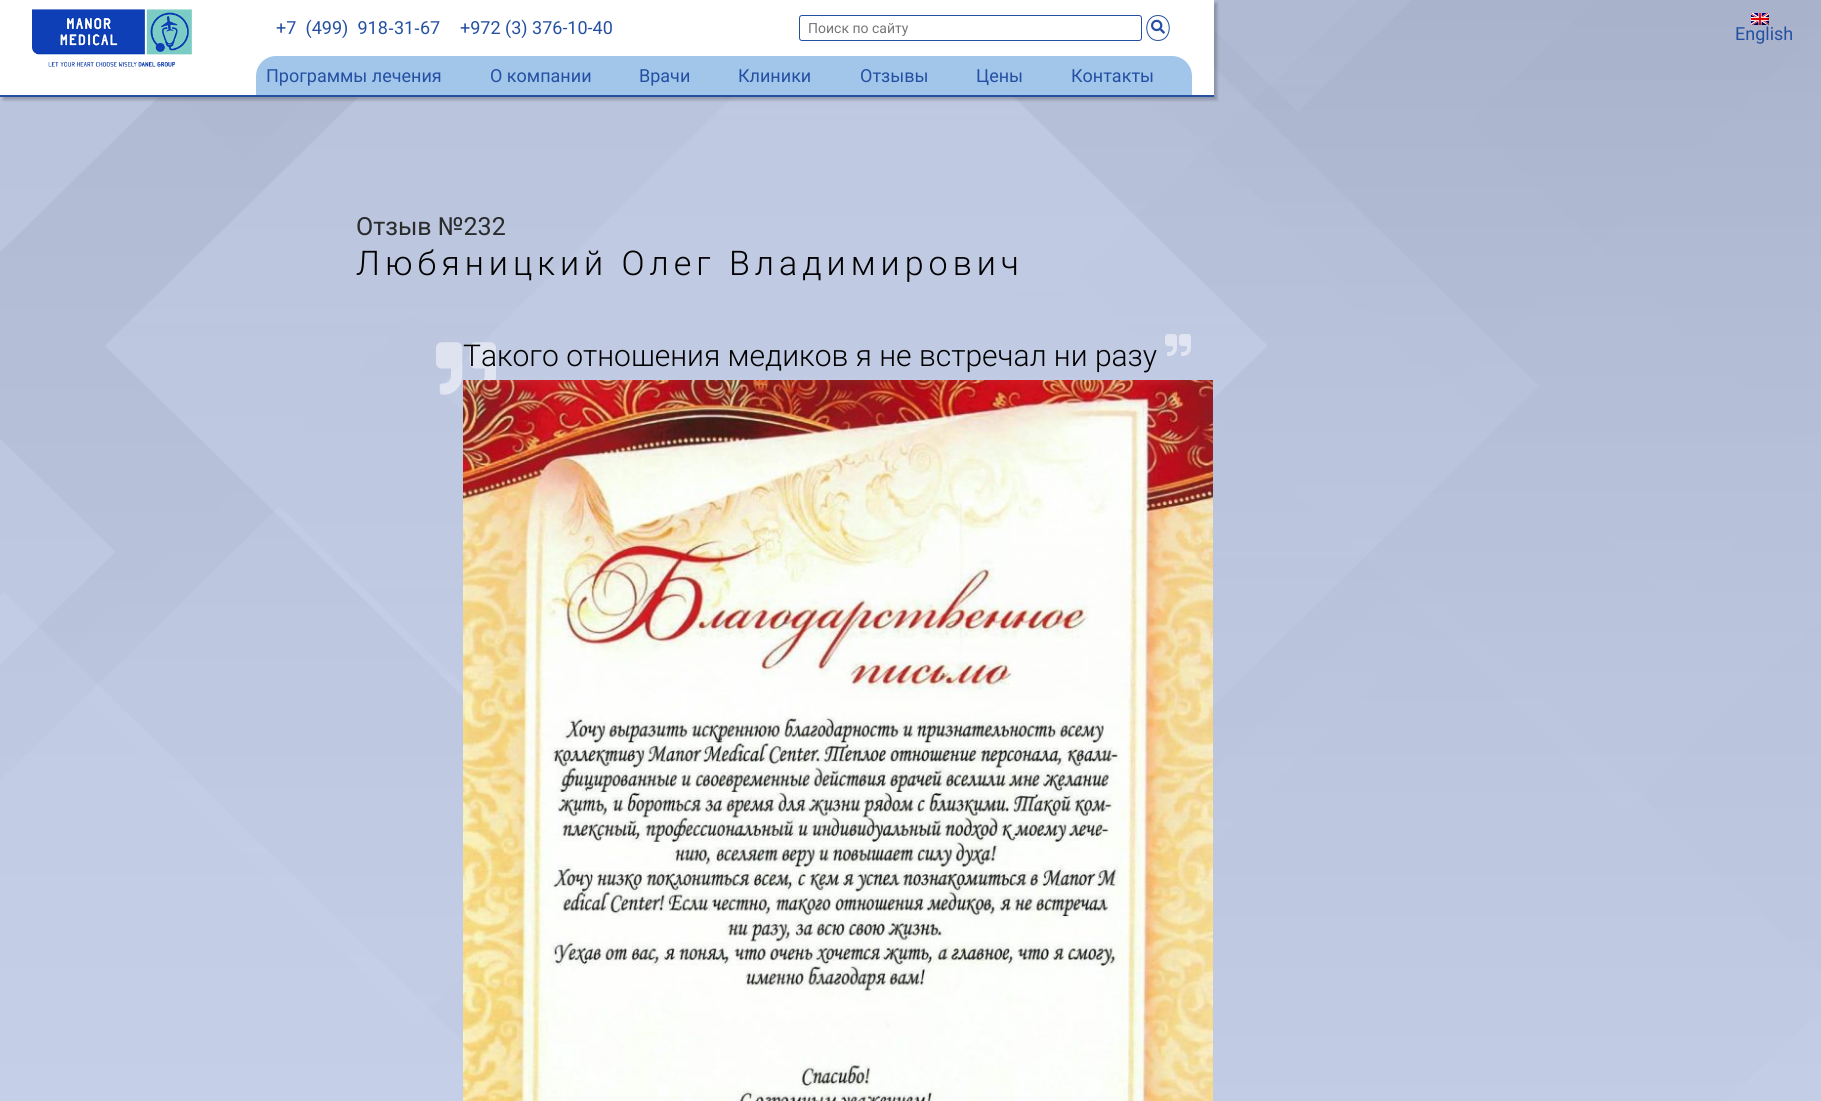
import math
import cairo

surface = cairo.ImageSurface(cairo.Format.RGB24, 1821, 1101)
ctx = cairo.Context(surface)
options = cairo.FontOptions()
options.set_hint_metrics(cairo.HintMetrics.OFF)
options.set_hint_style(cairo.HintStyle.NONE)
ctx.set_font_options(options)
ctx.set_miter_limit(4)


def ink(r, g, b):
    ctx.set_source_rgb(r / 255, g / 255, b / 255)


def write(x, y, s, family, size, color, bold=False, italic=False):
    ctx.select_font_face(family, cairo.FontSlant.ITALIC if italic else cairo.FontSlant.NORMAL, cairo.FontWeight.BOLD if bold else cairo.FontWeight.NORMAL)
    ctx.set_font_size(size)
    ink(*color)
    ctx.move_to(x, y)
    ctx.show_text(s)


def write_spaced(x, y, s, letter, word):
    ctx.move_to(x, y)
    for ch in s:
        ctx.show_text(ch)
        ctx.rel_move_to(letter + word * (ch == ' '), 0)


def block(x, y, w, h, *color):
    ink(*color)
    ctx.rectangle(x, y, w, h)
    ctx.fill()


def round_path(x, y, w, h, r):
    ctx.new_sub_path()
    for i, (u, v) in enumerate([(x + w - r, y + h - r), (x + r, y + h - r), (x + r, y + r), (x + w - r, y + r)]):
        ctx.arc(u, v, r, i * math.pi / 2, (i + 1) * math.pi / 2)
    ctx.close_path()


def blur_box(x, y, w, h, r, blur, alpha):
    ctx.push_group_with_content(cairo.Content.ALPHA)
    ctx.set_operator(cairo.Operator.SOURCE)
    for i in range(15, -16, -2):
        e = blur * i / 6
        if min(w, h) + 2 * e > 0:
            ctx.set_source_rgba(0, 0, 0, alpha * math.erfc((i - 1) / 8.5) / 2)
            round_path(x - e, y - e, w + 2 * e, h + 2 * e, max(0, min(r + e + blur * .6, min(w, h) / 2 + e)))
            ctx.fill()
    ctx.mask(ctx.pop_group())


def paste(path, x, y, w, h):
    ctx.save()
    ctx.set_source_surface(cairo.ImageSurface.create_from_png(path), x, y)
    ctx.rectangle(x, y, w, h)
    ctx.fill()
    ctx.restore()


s1 = dict(family="Roboto", size=18, color=(37, 80, 162))
s2 = dict(family="Liberation Sans", size=18, color=(37, 80, 162))
s3 = dict(family="Roboto", size=14, color=(117, 117, 117))
s4 = dict(family="Roboto", size=25, color=(41, 43, 44))
s5 = dict(family="Roboto Light", size=30, color=(0, 0, 0))

ink(203, 219, 255)
ctx.paint()
paste("pic1.png", 0, 0, 1821, 1101)
ink(0, 0, 0)
blur_box(3, 3, 1214, 97, 0, 1.5, 0.22)
block(0, 0, 1214, 95, 255, 255, 255)
block(0, 95, 1214, 2, 37, 80, 162)
paste("pic2.png", 32, 9, 160, 58)
write(276, 34, "+7 (499) 918", **s1)
write(388, 34, "‐", **s2)
write(394, 34, "31", **s1)
write(414, 34, "‐", **s2)
write(420, 34, "67", **s1)
write(460, 34, "+972 (3) 376-10-40", **s1)
round_path(799.5, 15.5, 342, 25, 2.5)
ctx.set_line_width(1)
ctx.stroke()
write(808, 33, "Поиск по сайту", **s3)
ctx.new_path()
ctx.move_to(1158, 15.5)
ctx.curve_to(1173, 15.5, 1173, 40.5, 1158, 40.5)
ctx.curve_to(1143, 40.5, 1143, 15.5, 1158, 15.5)
ctx.close_path()
ink(37, 80, 162)
ctx.stroke()
paste("pic3.png", 1151, 19, 14, 15)
ink(161, 198, 234)
ctx.new_path()
ctx.move_to(276, 56)
ctx.line_to(1172, 56)
ctx.curve_to(1183, 56, 1192, 65, 1192, 76)
ctx.line_to(1192, 95)
ctx.line_to(256, 95)
ctx.line_to(256, 76)
ctx.curve_to(256, 65, 265, 56, 276, 56)
ctx.close_path()
ctx.fill()
paste("pic4.png", 1751, 13, 18, 12)
write(1735, 40, "English", **s1)
write(266, 82, "Программы лечения", **s1)
write(490, 82, "О компании", **s1)
write(639, 82, "Врачи", **s1)
write(738, 82, "Клиники", **s1)
write(860, 82, "Отзывы", **s1)
write(976, 82, "Цены", **s1)
write(1071, 82, "Контакты", **s1)
write(356, 235, "Отзыв №232", **s4)
ctx.select_font_face("Roboto Light")
ctx.set_font_size(34)
ink(0, 0, 0)
write_spaced(356, 275, "Любяницкий Олег Владимирович", 5, 0)
paste("pic5.png", 436, 342, 60, 53)
write(463, 366, "Такого отношения медиков я не встречал ни разу", **s5)
paste("pic6.png", 1165, 334, 26, 22)
paste("pic7.png", 463, 380, 750, 721)
surface.write_to_png("screenshot.png")
